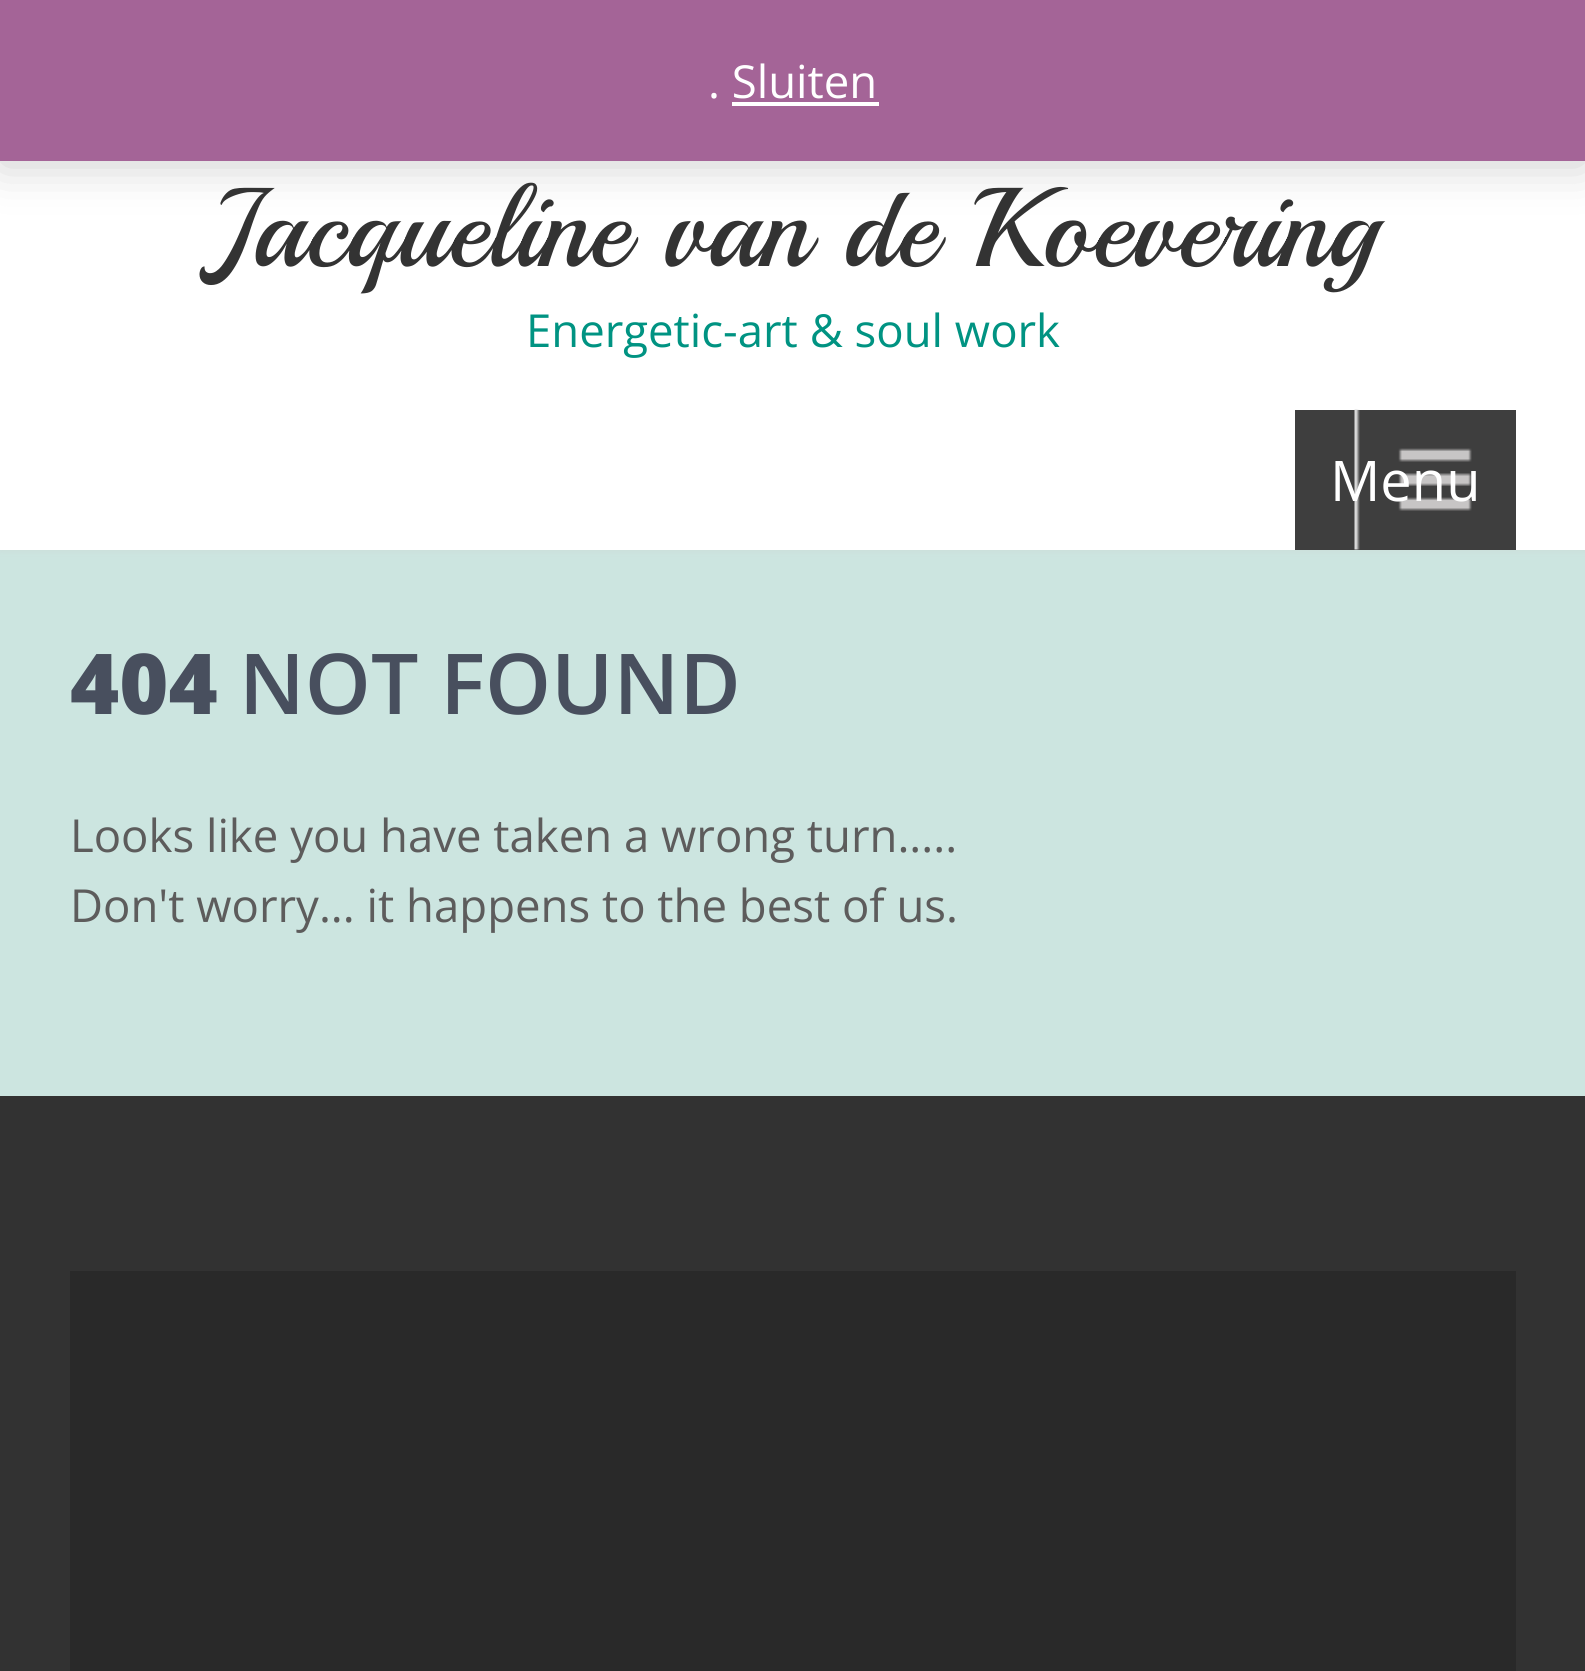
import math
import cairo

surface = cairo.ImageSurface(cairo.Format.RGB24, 1585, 1671)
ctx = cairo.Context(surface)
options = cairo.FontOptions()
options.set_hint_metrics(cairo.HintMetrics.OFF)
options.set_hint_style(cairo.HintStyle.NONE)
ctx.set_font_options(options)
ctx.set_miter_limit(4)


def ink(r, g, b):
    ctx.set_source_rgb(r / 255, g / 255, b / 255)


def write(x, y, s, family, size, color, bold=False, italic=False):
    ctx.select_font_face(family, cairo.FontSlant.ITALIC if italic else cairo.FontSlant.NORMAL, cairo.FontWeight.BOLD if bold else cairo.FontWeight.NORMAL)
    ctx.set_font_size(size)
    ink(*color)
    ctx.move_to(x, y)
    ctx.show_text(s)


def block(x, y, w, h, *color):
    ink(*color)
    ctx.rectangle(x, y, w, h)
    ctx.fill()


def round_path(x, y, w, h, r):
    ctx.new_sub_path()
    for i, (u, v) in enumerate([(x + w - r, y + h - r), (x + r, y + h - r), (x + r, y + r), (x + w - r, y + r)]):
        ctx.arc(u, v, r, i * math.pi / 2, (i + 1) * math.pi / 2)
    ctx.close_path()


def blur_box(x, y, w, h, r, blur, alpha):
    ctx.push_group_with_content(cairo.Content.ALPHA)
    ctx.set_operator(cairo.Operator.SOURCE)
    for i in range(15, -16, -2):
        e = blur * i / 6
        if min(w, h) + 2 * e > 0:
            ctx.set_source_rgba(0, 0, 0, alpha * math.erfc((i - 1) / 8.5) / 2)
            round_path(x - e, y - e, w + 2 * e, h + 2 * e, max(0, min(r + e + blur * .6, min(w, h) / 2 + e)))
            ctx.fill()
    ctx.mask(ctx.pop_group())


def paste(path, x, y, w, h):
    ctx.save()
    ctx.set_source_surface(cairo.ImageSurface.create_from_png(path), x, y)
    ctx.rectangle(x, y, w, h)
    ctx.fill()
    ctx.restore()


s1 = dict(family="Open Sans", size=45.5, color=(255, 255, 255))
s2 = dict(family="Playball", size=112, color=(51, 51, 51))
s3 = dict(family="Open Sans", size=45.5, color=(0, 147, 130))
s4 = dict(family="Open Sans", size=56, color=(255, 255, 255))
s5 = dict(family="Open Sans ExtraBold", size=84, color=(72, 79, 94))
s6 = dict(family="Open Sans SemiBold", size=84, color=(72, 79, 94))
s7 = dict(family="Open Sans", size=45.5, color=(93, 92, 92))

ink(204, 229, 224)
ctx.paint()
block(0, 1096, 1585, 575, 50, 50, 50)
ink(204, 204, 204)
blur_box(0, -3, 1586, 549, 0, 5, 1)
block(0, 161, 1585, 389, 255, 255, 255)
ink(0, 0, 0)
blur_box(0, 4, 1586, 161, 0, 23, 0.2)
block(0, 0, 1585, 161, 164, 100, 151)
write(708, 98, ". Sluiten", **s1)
block(732, 102, 147, 4, 255, 255, 255)
block(70, 1271, 1446, 400, 41, 41, 41)
write(209, 266, "Jacqueline van de Koevering", **s2)
write(526, 347, "Energetic-art & soul work", **s3)
block(1295, 410, 221, 140, 62, 62, 62)
paste("pic1.png", 1354, 409, 118, 141)
write(1330, 501, "Menu", **s4)
write(70, 714, "404", **s5)
write(239, 714, "NOT FOUND", **s6)
write(70, 852, "Looks like you have taken a wrong turn.....", **s7)
write(70, 922, "Don't worry... it happens to the best of us.", **s7)
surface.write_to_png("screenshot.png")
